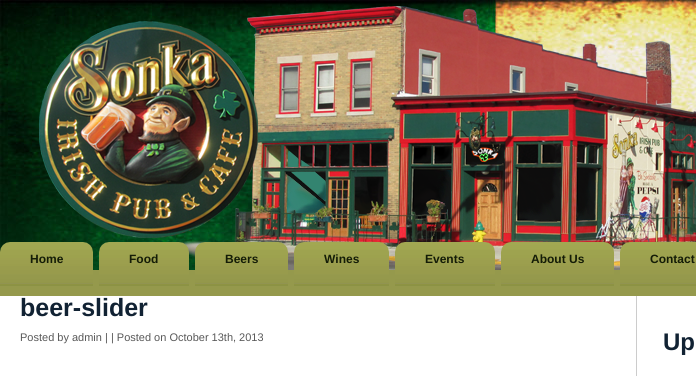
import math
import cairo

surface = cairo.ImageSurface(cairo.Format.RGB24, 696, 376)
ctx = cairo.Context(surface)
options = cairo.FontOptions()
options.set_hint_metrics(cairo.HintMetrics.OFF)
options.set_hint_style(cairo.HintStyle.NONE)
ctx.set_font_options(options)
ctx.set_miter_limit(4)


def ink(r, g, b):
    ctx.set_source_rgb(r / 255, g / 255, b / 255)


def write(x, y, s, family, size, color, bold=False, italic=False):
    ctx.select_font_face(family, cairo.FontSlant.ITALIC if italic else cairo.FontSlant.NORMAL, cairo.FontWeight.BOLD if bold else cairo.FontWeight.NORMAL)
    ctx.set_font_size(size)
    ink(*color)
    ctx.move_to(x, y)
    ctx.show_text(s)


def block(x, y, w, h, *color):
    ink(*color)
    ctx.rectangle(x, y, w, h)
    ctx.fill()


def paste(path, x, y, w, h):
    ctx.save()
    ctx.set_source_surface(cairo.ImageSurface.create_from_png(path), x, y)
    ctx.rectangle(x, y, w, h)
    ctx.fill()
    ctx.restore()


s1 = dict(family="Liberation Sans", size=12, color=(20, 28, 7), bold=True)
s2 = dict(family="Liberation Sans", size=25, color=(17, 34, 51), bold=True)
s3 = dict(family="Liberation Sans", size=11, color=(88, 88, 88))
s4 = dict(family="Liberation Sans", size=24, color=(17, 34, 51), bold=True)

ink(255, 255, 255)
ctx.paint()
paste("pic1.png", 0, 0, 696, 270)
block(636, 291, 1, 85, 204, 204, 204)
paste("pic2.png", 0, 6, 696, 290)
paste("pic3.png", 0, 242, 93, 44)
write(30, 263, "Home", **s1)
paste("pic4.png", 99, 242, 90, 44)
write(129, 263, "Food", **s1)
paste("pic5.png", 195, 242, 93, 44)
write(225, 263, "Beers", **s1)
paste("pic6.png", 294, 242, 95, 44)
write(324, 263, "Wines", **s1)
paste("pic7.png", 395, 242, 100, 44)
write(425, 263, "Events", **s1)
paste("pic8.png", 501, 242, 113, 44)
write(531, 263, "About Us", **s1)
paste("pic9.png", 620, 242, 76, 44)
write(650, 263, "Contact", **s1)
write(20, 316, "beer-slider", **s2)
write(20, 341, "Posted by admin | | Posted on October 13th, 2013", **s3)
write(663, 350, "Up", **s4)
surface.write_to_png("screenshot.png")
